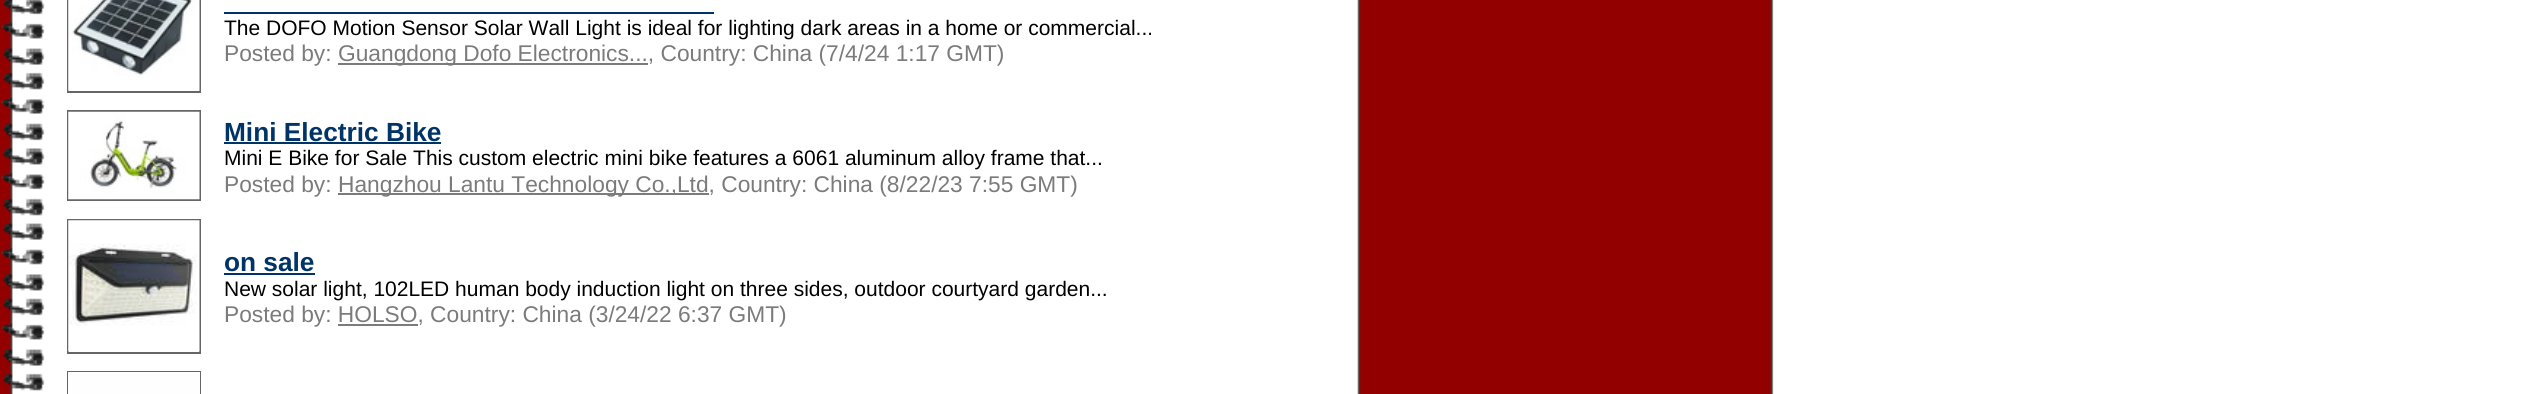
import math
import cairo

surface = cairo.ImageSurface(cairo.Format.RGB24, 2543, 394)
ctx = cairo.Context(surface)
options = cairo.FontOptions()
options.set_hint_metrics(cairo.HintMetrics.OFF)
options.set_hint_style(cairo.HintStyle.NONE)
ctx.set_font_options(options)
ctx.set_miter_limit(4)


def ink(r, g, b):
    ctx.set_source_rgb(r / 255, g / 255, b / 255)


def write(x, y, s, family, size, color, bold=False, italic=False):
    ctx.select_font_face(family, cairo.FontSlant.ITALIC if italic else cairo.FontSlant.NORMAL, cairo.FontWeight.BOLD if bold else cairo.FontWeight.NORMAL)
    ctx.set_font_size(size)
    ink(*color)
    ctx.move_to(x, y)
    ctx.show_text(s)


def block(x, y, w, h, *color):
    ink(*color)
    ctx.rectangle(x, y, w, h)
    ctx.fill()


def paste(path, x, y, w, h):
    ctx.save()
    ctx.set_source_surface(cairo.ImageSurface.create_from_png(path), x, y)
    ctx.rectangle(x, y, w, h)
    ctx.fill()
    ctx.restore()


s1 = dict(family="Liberation Sans", size=21, color=(0, 0, 0))
s2 = dict(family="Liberation Sans", size=22.75, color=(123, 123, 123))
s3 = dict(family="Liberation Sans", size=26.25, color=(0, 51, 102), bold=True)

ink(255, 255, 255)
ctx.paint()
paste("pic1.png", 0, 0, 1774, 394)
ctx.rectangle(68, -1, 132, 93)
ink(102, 102, 102)
ctx.stroke()
paste("pic2.png", 68, 0, 132, 91)
block(224, 12, 490, 2, 0, 51, 102)
write(224, 35, "The DOFO Motion Sensor Solar Wall Light is ideal for lighting dark areas in a home or commercial...", **s1)
write(224, 61, "Posted by:", **s2)
block(338, 63, 310, 2, 123, 123, 123)
write(338, 61, "Guangdong Dofo Electronics..., Country: China (7/4/24 1:17 GMT)", **s2)
ctx.rectangle(68, 111, 132, 89)
ink(102, 102, 102)
ctx.stroke()
paste("pic3.png", 68, 111, 132, 89)
write(224, 141, "Mini Electric Bike", **s3)
block(224, 142, 217, 2, 0, 51, 102)
write(224, 165, "Mini E Bike for Sale This custom electric mini bike features a 6061 aluminum alloy frame that...", **s1)
write(224, 192, "Posted by:", **s2)
block(338, 193, 371, 2, 123, 123, 123)
write(338, 192, "Hangzhou Lantu Technology Co.,Ltd, Country: China (8/22/23 7:55 GMT)", **s2)
ctx.rectangle(68, 220, 132, 133)
ink(102, 102, 102)
ctx.stroke()
paste("pic4.png", 68, 220, 132, 132)
write(224, 271, "on sale", **s3)
block(224, 273, 91, 2, 0, 51, 102)
write(224, 296, "New solar light, 102LED human body induction light on three sides, outdoor courtyard garden...", **s1)
write(224, 322, "Posted by: HOLSO, Country: China (3/24/22 6:37 GMT)", **s2)
block(338, 324, 80, 2, 123, 123, 123)
ctx.rectangle(68, 372, 132, 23)
ink(102, 102, 102)
ctx.stroke()
block(68, 372, 132, 22, 254, 254, 254)
surface.write_to_png("screenshot.png")
